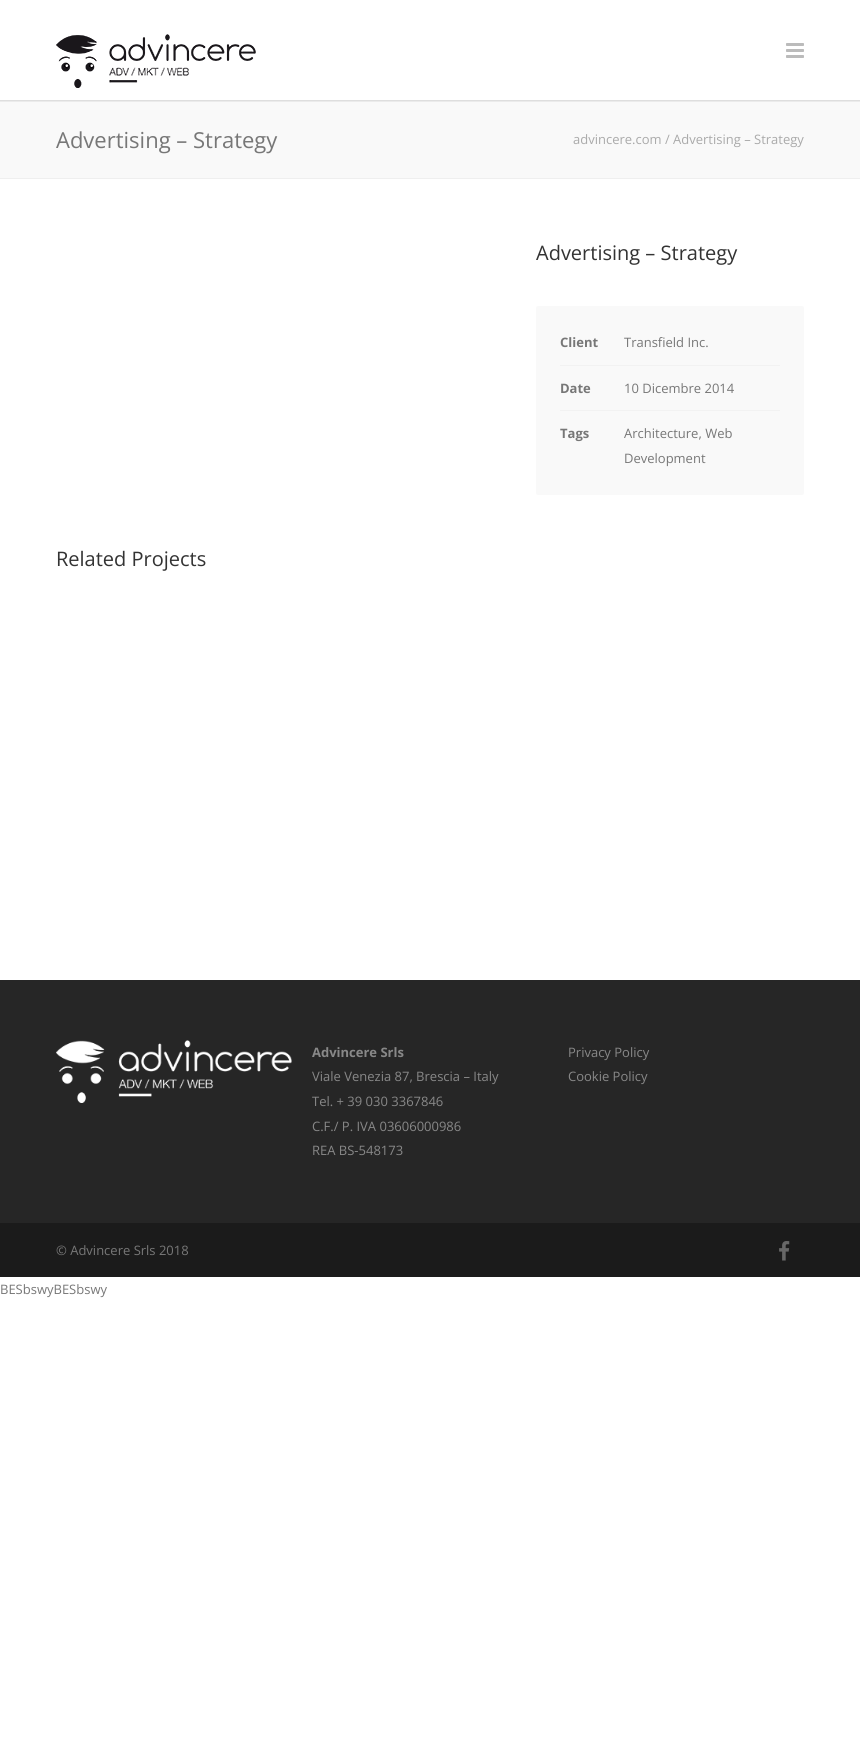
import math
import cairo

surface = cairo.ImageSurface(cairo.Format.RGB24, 860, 1745)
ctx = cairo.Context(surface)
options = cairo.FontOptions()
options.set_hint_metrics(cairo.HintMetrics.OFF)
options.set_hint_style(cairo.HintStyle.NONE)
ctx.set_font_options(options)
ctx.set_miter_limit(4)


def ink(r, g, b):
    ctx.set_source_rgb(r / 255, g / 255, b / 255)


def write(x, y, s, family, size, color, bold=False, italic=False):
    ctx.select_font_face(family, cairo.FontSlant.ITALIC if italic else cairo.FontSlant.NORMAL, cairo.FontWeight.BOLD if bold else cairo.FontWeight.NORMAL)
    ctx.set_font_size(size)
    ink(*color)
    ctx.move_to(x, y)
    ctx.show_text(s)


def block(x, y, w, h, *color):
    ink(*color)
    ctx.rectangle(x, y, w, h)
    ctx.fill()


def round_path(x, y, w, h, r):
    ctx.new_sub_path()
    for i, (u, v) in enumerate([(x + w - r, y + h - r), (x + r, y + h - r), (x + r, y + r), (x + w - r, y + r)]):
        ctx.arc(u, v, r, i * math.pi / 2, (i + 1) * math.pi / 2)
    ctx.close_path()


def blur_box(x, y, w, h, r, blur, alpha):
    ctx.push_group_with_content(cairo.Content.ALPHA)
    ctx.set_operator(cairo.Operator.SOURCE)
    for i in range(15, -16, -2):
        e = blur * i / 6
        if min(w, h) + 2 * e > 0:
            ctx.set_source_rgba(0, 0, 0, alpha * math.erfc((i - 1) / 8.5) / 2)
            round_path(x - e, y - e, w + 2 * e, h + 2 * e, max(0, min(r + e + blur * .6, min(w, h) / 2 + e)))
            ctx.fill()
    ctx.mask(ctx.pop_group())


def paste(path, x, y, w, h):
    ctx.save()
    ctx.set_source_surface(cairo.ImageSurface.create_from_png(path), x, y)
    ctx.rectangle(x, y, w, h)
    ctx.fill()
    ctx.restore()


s1 = dict(family="Open Sans", size=22, color=(119, 119, 119))
s2 = dict(family="Open Sans", size=13, color=(170, 170, 170))
s3 = dict(family="Open Sans", size=20, color=(51, 51, 51))
s4 = dict(family="Open Sans", size=13, color=(119, 119, 119), bold=True)
s5 = dict(family="Open Sans", size=13, color=(119, 119, 119))
s6 = dict(family="Open Sans", size=13, color=(136, 136, 136), bold=True)
s7 = dict(family="Open Sans", size=13, color=(136, 136, 136))

ink(255, 255, 255)
ctx.paint()
block(0, 100, 860, 78, 249, 249, 249)
ctx.save()
ctx.rectangle(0, 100, 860, 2)
ctx.clip()
ink(0, 0, 0)
blur_box(-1, -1, 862, 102, 0, 1, 0.16)
ctx.restore()
paste("pic1.png", 56, 34, 200, 54)
paste("pic2.png", 786, 43, 18, 15)
block(0, 178, 860, 1, 239, 239, 239)
write(56, 148, "Advertising – Strategy", **s1)
write(573, 144, "advincere.com / Advertising – Strategy", **s2)
write(536, 260, "Advertising – Strategy", **s3)
ink(249, 249, 249)
round_path(536, 306, 268, 189, 2)
ctx.fill()
block(560, 365, 220, 1, 242, 242, 242)
write(560, 347, "Client", **s4)
write(624, 347, "Transfield Inc.", **s5)
block(560, 410, 220, 1, 242, 242, 242)
write(560, 393, "Date", **s4)
write(624, 393, "10 Dicembre 2014", **s5)
write(560, 438, "Tags", **s4)
write(624, 438, "Architecture, Web", **s5)
write(624, 463, "Development", **s5)
write(56, 566, "Related Projects", **s3)
block(0, 980, 860, 243, 38, 38, 38)
paste("pic3.png", 56, 1040, 236, 63)
write(312, 1057, "Advincere Srls", **s6)
write(312, 1081, "Viale Venezia 87, Brescia – Italy", **s7)
write(312, 1106, "Tel. + 39 030 3367846", **s7)
write(312, 1131, "C.F./ P. IVA 03606000986", **s7)
write(312, 1155, "REA BS-548173", **s7)
write(568, 1057, "Privacy Policy", **s7)
write(568, 1081, "Cookie Policy", **s7)
block(0, 1223, 860, 54, 27, 27, 27)
write(56, 1255, "© Advincere Srls 2018", **s5)
paste("pic4.png", 779, 1241, 11, 20)
write(0, 1294, "BESbswyBESbswy", **s5)
surface.write_to_png("screenshot.png")
